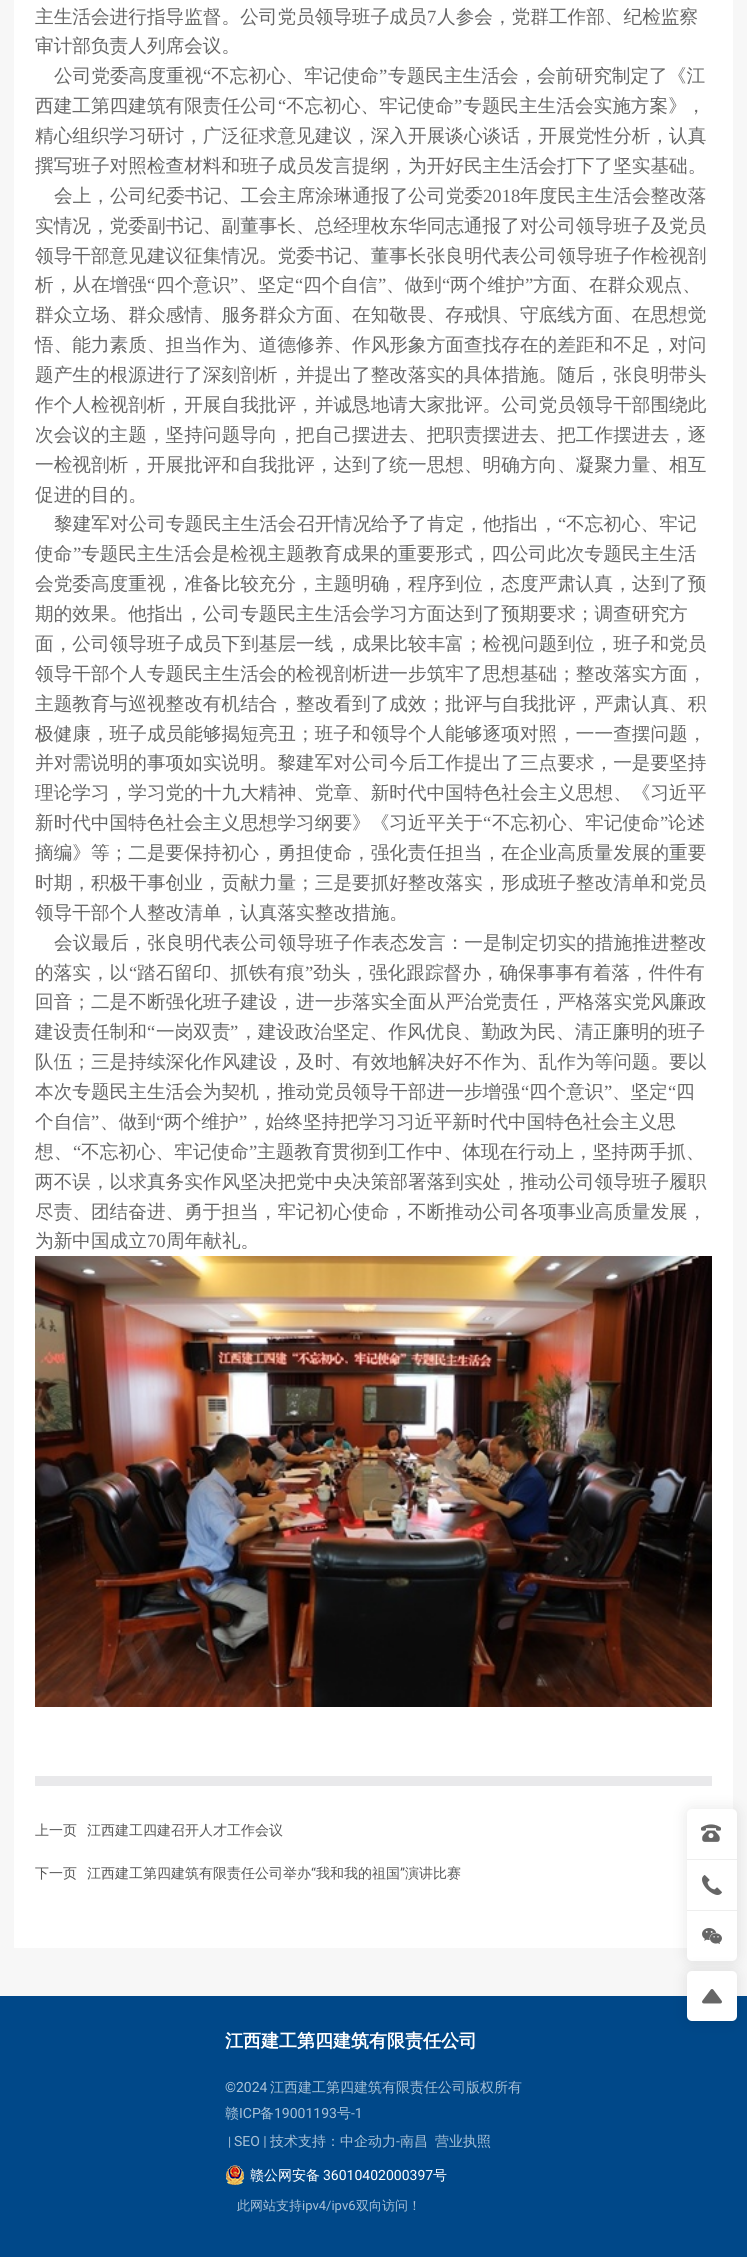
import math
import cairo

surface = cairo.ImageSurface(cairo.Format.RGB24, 747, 2257)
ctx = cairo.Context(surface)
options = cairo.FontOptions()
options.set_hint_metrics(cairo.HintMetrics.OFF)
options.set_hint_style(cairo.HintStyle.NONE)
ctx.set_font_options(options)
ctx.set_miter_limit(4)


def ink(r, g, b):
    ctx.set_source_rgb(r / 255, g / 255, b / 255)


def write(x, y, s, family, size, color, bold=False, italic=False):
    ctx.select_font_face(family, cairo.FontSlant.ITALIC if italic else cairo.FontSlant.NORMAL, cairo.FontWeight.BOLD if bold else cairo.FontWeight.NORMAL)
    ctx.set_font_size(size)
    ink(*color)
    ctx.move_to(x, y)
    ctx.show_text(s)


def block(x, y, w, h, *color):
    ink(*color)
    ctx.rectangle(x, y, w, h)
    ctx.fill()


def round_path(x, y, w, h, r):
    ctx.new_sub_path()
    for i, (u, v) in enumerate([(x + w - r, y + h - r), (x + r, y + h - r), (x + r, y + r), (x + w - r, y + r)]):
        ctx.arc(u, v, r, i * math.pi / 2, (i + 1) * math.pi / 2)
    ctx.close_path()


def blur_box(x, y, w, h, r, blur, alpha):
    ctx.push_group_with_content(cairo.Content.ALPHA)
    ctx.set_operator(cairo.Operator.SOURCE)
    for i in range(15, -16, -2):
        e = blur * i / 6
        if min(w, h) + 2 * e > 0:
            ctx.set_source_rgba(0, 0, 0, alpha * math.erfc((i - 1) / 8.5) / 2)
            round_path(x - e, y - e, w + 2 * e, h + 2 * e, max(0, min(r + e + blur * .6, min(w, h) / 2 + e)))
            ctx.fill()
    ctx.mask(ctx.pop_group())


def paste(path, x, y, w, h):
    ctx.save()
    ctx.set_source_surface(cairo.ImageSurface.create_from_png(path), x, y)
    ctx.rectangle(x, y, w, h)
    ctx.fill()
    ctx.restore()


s1 = dict(family="WenQuanYi Zen Hei Medium", size=18.65, color=(102, 102, 102))
s2 = dict(family="Liberation Serif", size=18.65, color=(102, 102, 102))
s3 = dict(family="WenQuanYi Zen Hei Medium", size=14, color=(85, 85, 85))
s4 = dict(family="Roboto", size=14, color=(85, 85, 85))
s5 = dict(family="WenQuanYi Zen Hei", size=18, color=(255, 255, 255), bold=True)
s6 = dict(family="Roboto", size=14, color=(168, 193, 215))
s7 = dict(family="WenQuanYi Zen Hei Medium", size=14, color=(168, 193, 215))
s8 = dict(family="Roboto", size=13, color=(168, 193, 215))
s9 = dict(family="WenQuanYi Zen Hei Medium", size=14, color=(255, 255, 255))
s10 = dict(family="Roboto", size=14, color=(255, 255, 255))
s11 = dict(family="WenQuanYi Zen Hei Medium", size=13, color=(168, 193, 215))

ink(247, 247, 247)
ctx.paint()
block(14, 0, 719, 1948, 255, 255, 255)
write(35, 23, "主生活会进行指导监督。公司党员领导班子成员", **s1)
write(427, 23, "7", **s2)
write(437, 23, "人参会，党群工作部、纪检监察", **s1)
write(35, 52, "审计部负责人列席会议。", **s1)
write(54, 82, "公司党委高度重视", **s1)
write(203, 82, "“", **s2)
write(211, 82, "不忘初心、牢记使命", **s1)
write(379, 82, "”", **s2)
write(388, 82, "专题民主生活会，会前研究制定了《江", **s1)
write(35, 112, "西建工第四建筑有限责任公司", **s1)
write(278, 112, "“", **s2)
write(286, 112, "不忘初心、牢记使命", **s1)
write(454, 112, "”", **s2)
write(463, 112, "专题民主生活会实施方案》，", **s1)
write(35, 142, "精心组织学习研讨，广泛征求意见建议，深入开展谈心谈话，开展党性分析，认真", **s1)
write(35, 172, "撰写班子对照检查材料和班子成员发言提纲，为开好民主生活会打下了坚实基础。", **s1)
write(54, 202, "会上，公司纪委书记、工会主席涂琳通报了公司党委", **s1)
write(483, 202, "2018", **s2)
write(520, 202, "年度民主生活会整改落", **s1)
write(35, 232, "实情况，党委副书记、副董事长、总经理枚东华同志通报了对公司领导班子及党员", **s1)
write(35, 262, "领导干部意见建议征集情况。党委书记、董事长张良明代表公司领导班子作检视剖", **s1)
write(35, 291, "析，从在增强", **s1)
write(147, 291, "“", **s2)
write(156, 291, "四个意识", **s1)
write(230, 291, "”", **s2)
write(239, 291, "、坚定", **s1)
write(295, 291, "“", **s2)
write(303, 291, "四个自信", **s1)
write(378, 291, "”", **s2)
write(386, 291, "、做到", **s1)
write(442, 291, "“", **s2)
write(450, 291, "两个维护", **s1)
write(525, 291, "”", **s2)
write(533, 291, "方面、在群众观点、", **s1)
write(35, 321, "群众立场、群众感情、服务群众方面、在知敬畏、存戒惧、守底线方面、在思想觉", **s1)
write(35, 351, "悟、能力素质、担当作为、道德修养、作风形象方面查找存在的差距和不足，对问", **s1)
write(35, 381, "题产生的根源进行了深刻剖析，并提出了整改落实的具体措施。随后，张良明带头", **s1)
write(35, 411, "作个人检视剖析，开展自我批评，并诚恳地请大家批评。公司党员领导干部围绕此", **s1)
write(35, 441, "次会议的主题，坚持问题导向，把自己摆进去、把职责摆进去、把工作摆进去，逐", **s1)
write(35, 471, "一检视剖析，开展批评和自我批评，达到了统一思想、明确方向、凝聚力量、相互", **s1)
write(35, 501, "促进的目的。", **s1)
write(54, 530, "黎建军对公司专题民主生活会召开情况给予了肯定，他指出，", **s1)
write(558, 530, "“", **s2)
write(566, 530, "不忘初心、牢记", **s1)
write(35, 560, "使命", **s1)
write(73, 560, "”", **s2)
write(81, 560, "专题民主生活会是检视主题教育成果的重要形式，四公司此次专题民主生活", **s1)
write(35, 590, "会党委高度重视，准备比较充分，主题明确，程序到位，态度严肃认真，达到了预", **s1)
write(35, 620, "期的效果。他指出，公司专题民主生活会学习方面达到了预期要求；调查研究方", **s1)
write(35, 650, "面，公司领导班子成员下到基层一线，成果比较丰富；检视问题到位，班子和党员", **s1)
write(35, 680, "领导干部个人专题民主生活会的检视剖析进一步筑牢了思想基础；整改落实方面，", **s1)
write(35, 710, "主题教育与巡视整改有机结合，整改看到了成效；批评与自我批评，严肃认真、积", **s1)
write(35, 740, "极健康，班子成员能够揭短亮丑；班子和领导个人能够逐项对照，一一查摆问题，", **s1)
write(35, 769, "并对需说明的事项如实说明。黎建军对公司今后工作提出了三点要求，一是要坚持", **s1)
write(35, 799, "理论学习，学习党的十九大精神、党章、新时代中国特色社会主义思想、《习近平", **s1)
write(35, 829, "新时代中国特色社会主义思想学习纲要》《习近平关于", **s1)
write(483, 829, "“", **s2)
write(492, 829, "不忘初心、牢记使命", **s1)
write(660, 829, "”", **s2)
write(668, 829, "论述", **s1)
write(35, 859, "摘编》等；二是要保持初心，勇担使命，强化责任担当，在企业高质量发展的重要", **s1)
write(35, 889, "时期，积极干事创业，贡献力量；三是要抓好整改落实，形成班子整改清单和党员", **s1)
write(35, 919, "领导干部个人整改清单，认真落实整改措施。", **s1)
write(54, 949, "会议最后，张良明代表公司领导班子作表态发言：一是制定切实的措施推进整改", **s1)
write(35, 979, "的落实，以", **s1)
write(129, 979, "“", **s2)
write(137, 979, "踏石留印、抓铁有痕", **s1)
write(305, 979, "”", **s2)
write(313, 979, "劲头，强化跟踪督办，确保事事有着落，件件有", **s1)
write(35, 1008, "回音；二是不断强化班子建设，进一步落实全面从严治党责任，严格落实党风廉政", **s1)
write(35, 1038, "建设责任制和", **s1)
write(147, 1038, "“", **s2)
write(156, 1038, "一岗双责", **s1)
write(230, 1038, "”", **s2)
write(239, 1038, "，建设政治坚定、作风优良、勤政为民、清正廉明的班子", **s1)
write(35, 1068, "队伍；三是持续深化作风建设，及时、有效地解决好不作为、乱作为等问题。要以", **s1)
write(35, 1098, "本次专题民主生活会为契机，推动党员领导干部进一步增强", **s1)
write(521, 1098, "“", **s2)
write(529, 1098, "四个意识", **s1)
write(604, 1098, "”", **s2)
write(612, 1098, "、坚定", **s1)
write(668, 1098, "“", **s2)
write(676, 1098, "四", **s1)
write(35, 1128, "个自信", **s1)
write(91, 1128, "”", **s2)
write(100, 1128, "、做到", **s1)
write(156, 1128, "“", **s2)
write(164, 1128, "两个维护", **s1)
write(239, 1128, "”", **s2)
write(247, 1128, "，始终坚持把学习习近平新时代中国特色社会主义思", **s1)
write(35, 1158, "想、", **s1)
write(73, 1158, "“", **s2)
write(81, 1158, "不忘初心、牢记使命", **s1)
write(249, 1158, "”", **s2)
write(257, 1158, "主题教育贯彻到工作中、体现在行动上，坚持两手抓、", **s1)
write(35, 1188, "两不误，以求真务实作风坚决把党中央决策部署落到实处，推动公司领导班子履职", **s1)
write(35, 1218, "尽责、团结奋进、勇于担当，牢记初心使命，不断推动公司各项事业高质量发展，", **s1)
write(35, 1247, "为新中国成立", **s1)
write(147, 1247, "70", **s2)
write(166, 1247, "周年献礼。", **s1)
paste("pic1.png", 35, 1256, 677, 451)
block(35, 1776, 677, 10, 233, 233, 235)
write(35, 1835, "上一页", **s3)
write(87, 1835, "江西建工四建召开人才工作会议", **s3)
write(35, 1878, "下一页", **s3)
write(87, 1878, "江西建工第四建筑有限责任公司举办", **s3)
write(311, 1878, "“", **s4)
write(316, 1878, "我和我的祖国", **s3)
write(400, 1878, "”", **s4)
write(405, 1878, "演讲比赛", **s3)
block(0, 1996, 747, 261, 0, 72, 137)
ink(0, 0, 0)
blur_box(687, 1809, 50, 152, 5, 7.5, 0.1)
ink(255, 255, 255)
round_path(687, 1809, 50, 152, 5)
ctx.fill()
block(687, 1859, 50, 1, 238, 238, 238)
paste("pic2.png", 701, 1824, 20, 18)
block(687, 1910, 50, 1, 238, 238, 238)
paste("pic3.png", 702, 1875, 20, 20)
paste("pic4.png", 702, 1928, 20, 16)
ink(0, 0, 0)
blur_box(687, 1971, 50, 50, 5, 7.5, 0.1)
ink(255, 255, 255)
round_path(687, 1971, 50, 50, 5)
ctx.fill()
paste("pic5.png", 702, 1989, 20, 15)
write(225, 2047, "江西建工第四建筑有限责任公司", **s5)
write(225, 2092, "©2024", **s6)
write(270, 2092, "江西建工第四建筑有限责任公司版权所有", **s7)
write(225, 2118, "赣", **s7)
write(239, 2118, "ICP", **s6)
write(260, 2118, "备", **s7)
write(274, 2118, "19001193", **s6)
write(337, 2118, "号", **s7)
write(351, 2118, "-1", **s6)
write(228, 2146, "|", **s8)
write(234, 2146, "SEO |", **s6)
write(270, 2146, "技术支持：中企动力", **s7)
write(396, 2146, "-", **s6)
write(400, 2146, "南昌", **s7)
write(435, 2146, "营业执照", **s7)
paste("pic6.png", 226, 2165, 18, 20)
write(250, 2180, "赣公网安备", **s9)
write(323, 2180, "36010402000397", **s10)
write(433, 2180, "号", **s9)
write(237, 2210, "此网站支持", **s11)
write(302, 2210, "ipv4/ipv6", **s8)
write(356, 2210, "双向访问！", **s11)
surface.write_to_png("screenshot.png")
